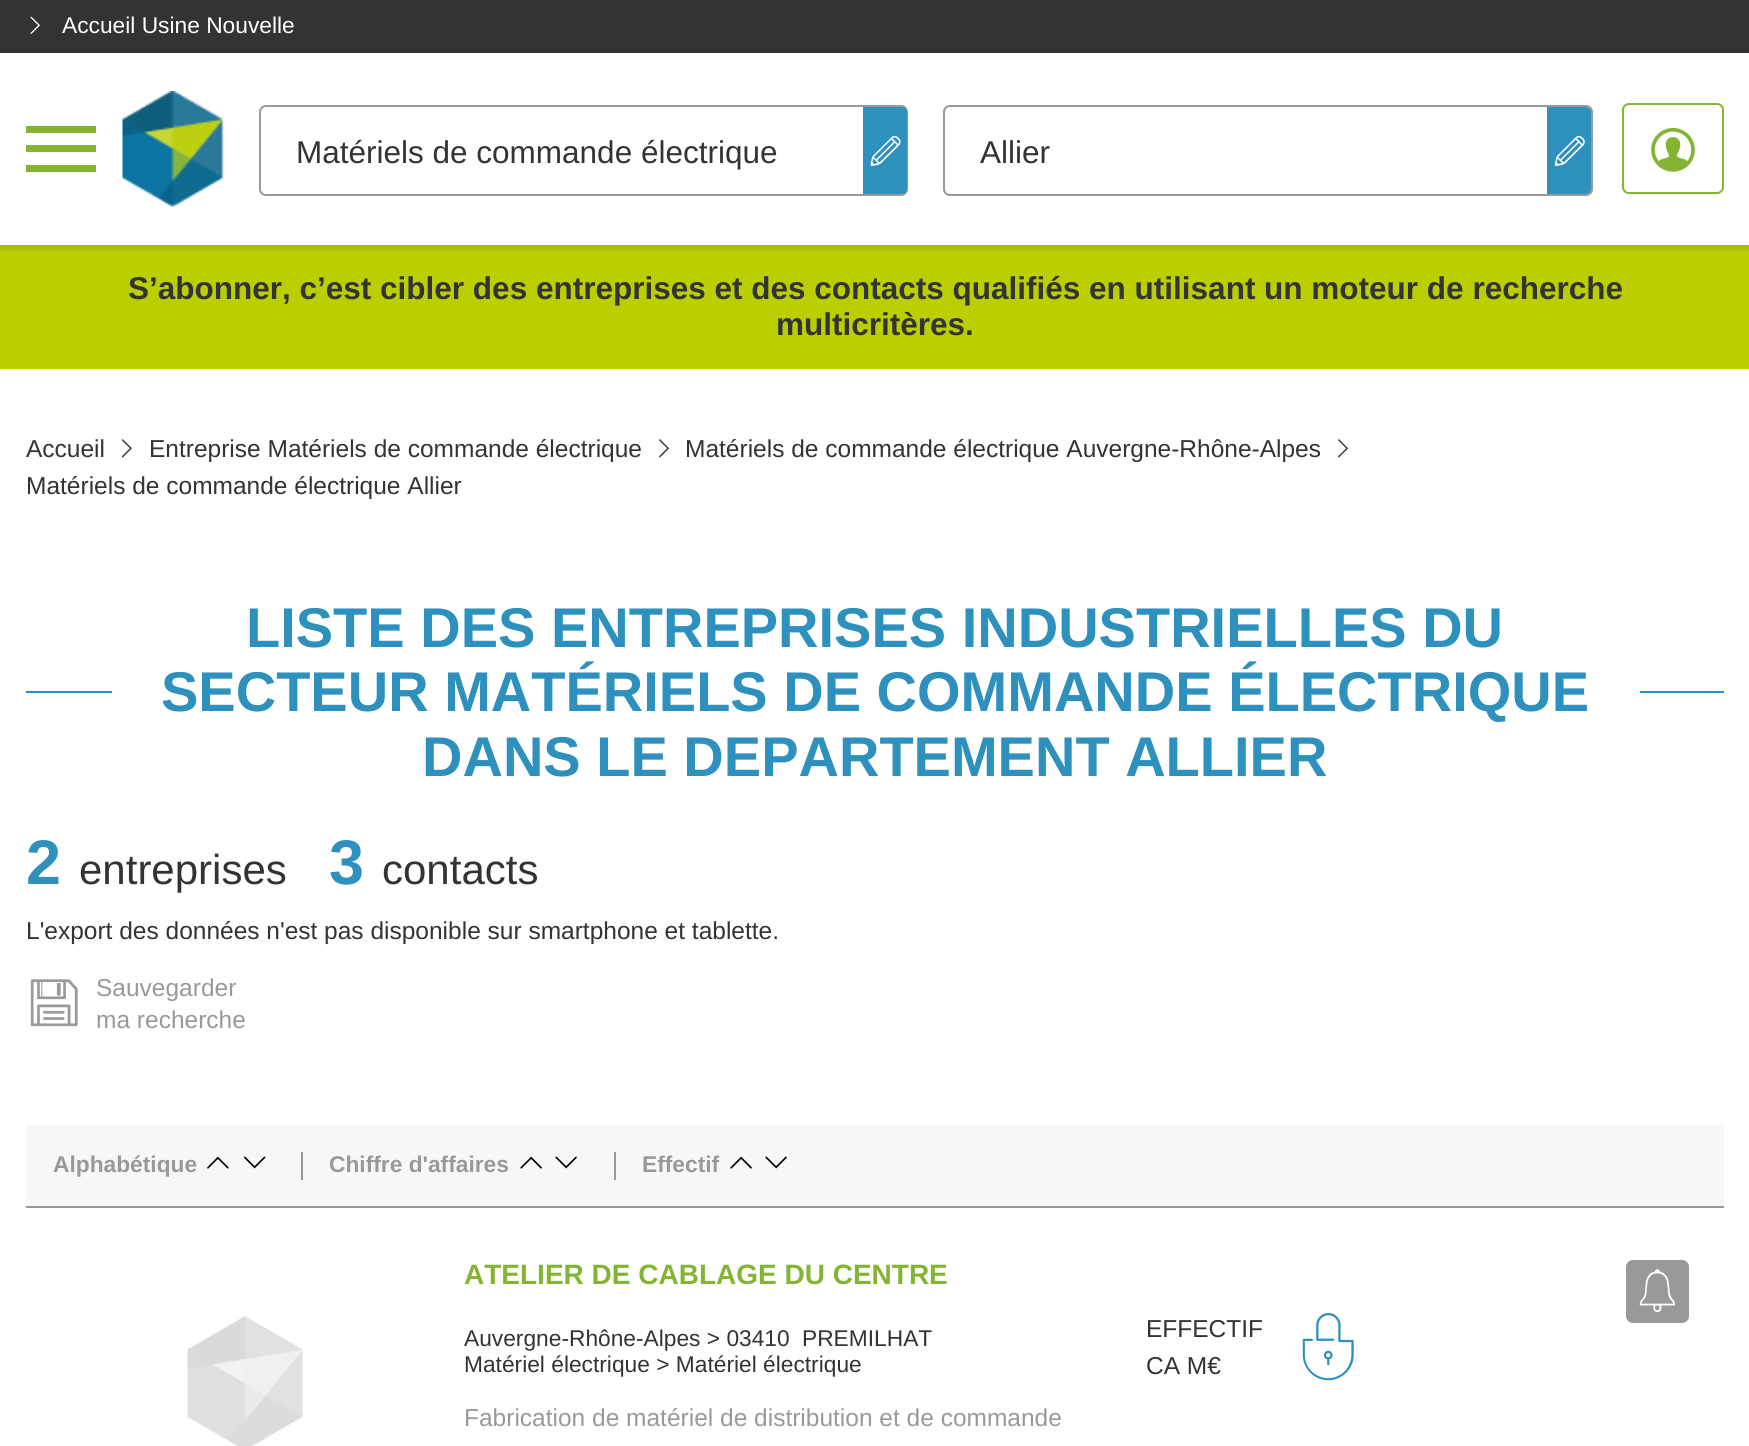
import math
import cairo

surface = cairo.ImageSurface(cairo.Format.RGB24, 1749, 1446)
ctx = cairo.Context(surface)
options = cairo.FontOptions()
options.set_hint_metrics(cairo.HintMetrics.OFF)
options.set_hint_style(cairo.HintStyle.NONE)
ctx.set_font_options(options)
ctx.set_miter_limit(4)


def ink(r, g, b):
    ctx.set_source_rgb(r / 255, g / 255, b / 255)


def write(x, y, s, family, size, color, bold=False, italic=False):
    ctx.select_font_face(family, cairo.FontSlant.ITALIC if italic else cairo.FontSlant.NORMAL, cairo.FontWeight.BOLD if bold else cairo.FontWeight.NORMAL)
    ctx.set_font_size(size)
    ink(*color)
    ctx.move_to(x, y)
    ctx.show_text(s)


def block(x, y, w, h, *color):
    ink(*color)
    ctx.rectangle(x, y, w, h)
    ctx.fill()


def round_path(x, y, w, h, r):
    ctx.new_sub_path()
    for i, (u, v) in enumerate([(x + w - r, y + h - r), (x + r, y + h - r), (x + r, y + r), (x + w - r, y + r)]):
        ctx.arc(u, v, r, i * math.pi / 2, (i + 1) * math.pi / 2)
    ctx.close_path()


def blur_box(x, y, w, h, r, blur, alpha):
    ctx.push_group_with_content(cairo.Content.ALPHA)
    ctx.set_operator(cairo.Operator.SOURCE)
    for i in range(15, -16, -2):
        e = blur * i / 6
        if min(w, h) + 2 * e > 0:
            ctx.set_source_rgba(0, 0, 0, alpha * math.erfc((i - 1) / 8.5) / 2)
            round_path(x - e, y - e, w + 2 * e, h + 2 * e, max(0, min(r + e + blur * .6, min(w, h) / 2 + e)))
            ctx.fill()
    ctx.mask(ctx.pop_group())


def paste(path, x, y, w, h):
    ctx.save()
    ctx.set_source_surface(cairo.ImageSurface.create_from_png(path), x, y)
    ctx.rectangle(x, y, w, h)
    ctx.fill()
    ctx.restore()


s1 = dict(family="Liberation Sans", size=22.75, color=(255, 255, 255))
s2 = dict(family="Liberation Sans", size=31.5, color=(51, 51, 51))
s3 = dict(family="Liberation Sans", size=31.5, color=(51, 51, 51), bold=True)
s4 = dict(family="Liberation Sans", size=24.5, color=(51, 51, 51))
s5 = dict(family="Liberation Sans", size=56, color=(45, 144, 189), bold=True)
s6 = dict(family="Liberation Sans", size=63, color=(45, 144, 189), bold=True)
s7 = dict(family="Liberation Sans", size=42, color=(51, 51, 51))
s8 = dict(family="Liberation Sans", size=24.5, color=(153, 153, 153))
s9 = dict(family="Liberation Sans", size=22.75, color=(153, 153, 153), bold=True)
s10 = dict(family="Liberation Sans", size=28, color=(131, 180, 50), bold=True)
s11 = dict(family="Liberation Sans", size=22.75, color=(51, 51, 51))

ink(255, 255, 255)
ctx.paint()
block(0, 0, 1749, 53, 51, 51, 51)
paste("pic1.png", 30, 16, 10, 18)
write(62, 33, "Accueil Usine Nouvelle", **s1)
block(0, 245, 1749, 124, 187, 206, 0)
ctx.save()
ctx.rectangle(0, 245, 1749, 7)
ctx.clip()
ink(0, 0, 0)
blur_box(0, 58, 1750, 192, 0, 2, 0.1)
ctx.restore()
block(26, 126, 70, 7, 131, 180, 50)
block(26, 145, 70, 7, 131, 180, 50)
block(26, 165, 70, 7, 131, 180, 50)
paste("pic2.png", 122, 91, 102, 116)
round_path(260, 106, 647, 89, 6)
ink(153, 153, 153)
ctx.stroke()
write(296, 163, "Matériels de commande électrique", **s2)
ink(45, 144, 189)
ctx.new_path()
ctx.move_to(863, 107)
ctx.line_to(902, 107)
ctx.curve_to(905, 107, 907, 109, 907, 112)
ctx.line_to(907, 189)
ctx.curve_to(907, 192, 905, 194, 902, 194)
ctx.line_to(863, 194)
ctx.close_path()
ctx.fill()
paste("pic3.png", 870, 135, 31, 32)
round_path(944, 106, 648, 89, 6)
ink(153, 153, 153)
ctx.stroke()
write(980, 163, "Allier", **s2)
ink(45, 144, 189)
ctx.new_path()
ctx.move_to(1547, 107)
ctx.line_to(1586, 107)
ctx.curve_to(1589, 107, 1591, 109, 1591, 112)
ctx.line_to(1591, 189)
ctx.curve_to(1591, 192, 1589, 194, 1586, 194)
ctx.line_to(1547, 194)
ctx.close_path()
ctx.fill()
paste("pic4.png", 1554, 135, 31, 31)
round_path(1623, 104, 100, 89, 6)
ink(131, 180, 50)
ctx.stroke()
paste("pic5.png", 1651, 128, 44, 44)
write(128, 299, "S’abonner, c’est cibler des entreprises et des contacts qualifiés en utilisant un moteur de recherche", **s3)
write(776, 335, "multicritères.", **s3)
write(26, 457, "Accueil", **s4)
paste("pic6.png", 121, 439, 11, 19)
write(149, 457, "Entreprise Matériels de commande électrique", **s4)
paste("pic7.png", 659, 439, 10, 19)
write(685, 457, "Matériels de commande électrique Auvergne-Rhône-Alpes", **s4)
paste("pic7.png", 1338, 439, 10, 19)
write(26, 494, "Matériels de commande électrique Allier", **s4)
write(246, 647, "LISTE DES ENTREPRISES INDUSTRIELLES DU", **s5)
block(26, 691, 86, 2, 45, 144, 189)
write(161, 711, "SECTEUR MATÉRIELS DE COMMANDE ÉLECTRIQUE", **s5)
block(1640, 691, 84, 2, 45, 144, 189)
write(422, 776, "DANS LE DEPARTEMENT ALLIER", **s5)
write(26, 884, "2", **s6)
write(79, 884, "entreprises", **s7)
write(329, 884, "3", **s6)
write(382, 884, "contacts", **s7)
write(26, 939, "L'export des données n'est pas disponible sur smartphone et tablette.", **s4)
paste("pic8.png", 30, 979, 48, 48)
write(96, 996, "Sauvegarder", **s8)
write(96, 1028, "ma recherche", **s8)
block(26, 1125, 1698, 81, 247, 247, 247)
block(26, 1206, 1698, 2, 153, 153, 153)
write(53, 1172, "Alphabétique", **s9)
paste("pic9.png", 207, 1156, 22, 13)
paste("pic10.png", 244, 1156, 22, 13)
block(301, 1152, 2, 28, 153, 153, 153)
write(329, 1172, "Chiffre d'affaires", **s9)
paste("pic11.png", 520, 1156, 22, 13)
paste("pic12.png", 555, 1156, 22, 13)
block(614, 1152, 2, 28, 153, 153, 153)
write(642, 1172, "Effectif", **s9)
paste("pic11.png", 730, 1156, 22, 13)
paste("pic12.png", 765, 1156, 22, 13)
paste("pic13.png", 187, 1316, 116, 130)
write(464, 1284, "ATELIER DE CABLAGE DU CENTRE", **s10)
write(464, 1346, "Auvergne-Rhône-Alpes > 03410", **s11)
write(802, 1346, "PREMILHAT", **s11)
write(464, 1372, "Matériel électrique > Matériel électrique", **s11)
write(464, 1426, "Fabrication de matériel de distribution et de commande", **s8)
round_path(1626, 1260, 63, 63, 7)
ctx.fill()
paste("pic14.png", 1639, 1269, 37, 44)
write(1146, 1337, "EFFECTIF", **s4)
write(1146, 1374, "CA M€", **s4)
paste("pic15.png", 1302, 1313, 52, 68)
surface.write_to_png("screenshot.png")
